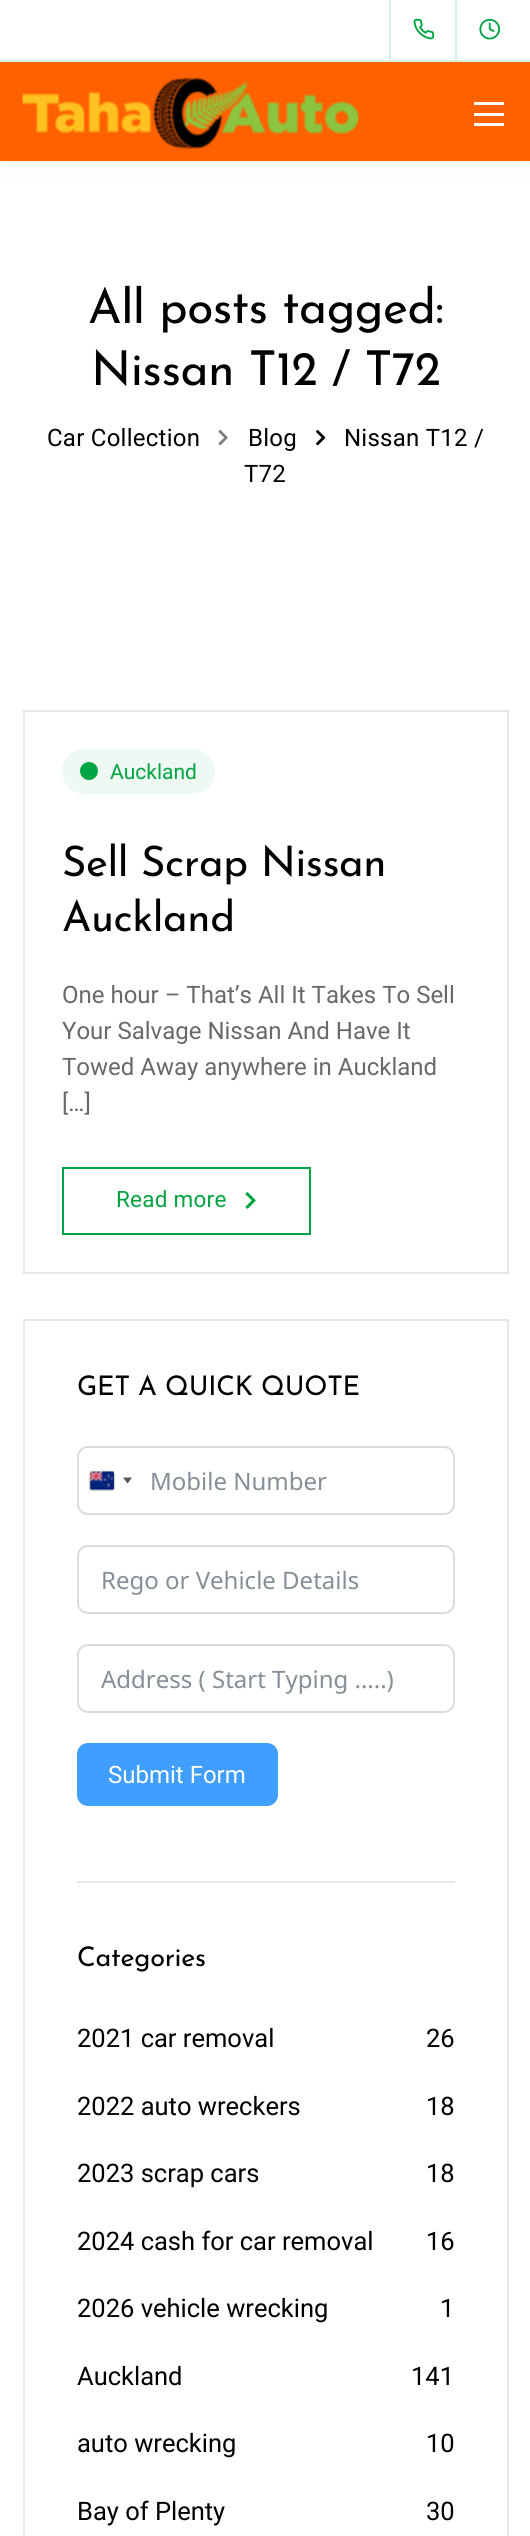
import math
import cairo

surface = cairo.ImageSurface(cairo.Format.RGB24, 530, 2536)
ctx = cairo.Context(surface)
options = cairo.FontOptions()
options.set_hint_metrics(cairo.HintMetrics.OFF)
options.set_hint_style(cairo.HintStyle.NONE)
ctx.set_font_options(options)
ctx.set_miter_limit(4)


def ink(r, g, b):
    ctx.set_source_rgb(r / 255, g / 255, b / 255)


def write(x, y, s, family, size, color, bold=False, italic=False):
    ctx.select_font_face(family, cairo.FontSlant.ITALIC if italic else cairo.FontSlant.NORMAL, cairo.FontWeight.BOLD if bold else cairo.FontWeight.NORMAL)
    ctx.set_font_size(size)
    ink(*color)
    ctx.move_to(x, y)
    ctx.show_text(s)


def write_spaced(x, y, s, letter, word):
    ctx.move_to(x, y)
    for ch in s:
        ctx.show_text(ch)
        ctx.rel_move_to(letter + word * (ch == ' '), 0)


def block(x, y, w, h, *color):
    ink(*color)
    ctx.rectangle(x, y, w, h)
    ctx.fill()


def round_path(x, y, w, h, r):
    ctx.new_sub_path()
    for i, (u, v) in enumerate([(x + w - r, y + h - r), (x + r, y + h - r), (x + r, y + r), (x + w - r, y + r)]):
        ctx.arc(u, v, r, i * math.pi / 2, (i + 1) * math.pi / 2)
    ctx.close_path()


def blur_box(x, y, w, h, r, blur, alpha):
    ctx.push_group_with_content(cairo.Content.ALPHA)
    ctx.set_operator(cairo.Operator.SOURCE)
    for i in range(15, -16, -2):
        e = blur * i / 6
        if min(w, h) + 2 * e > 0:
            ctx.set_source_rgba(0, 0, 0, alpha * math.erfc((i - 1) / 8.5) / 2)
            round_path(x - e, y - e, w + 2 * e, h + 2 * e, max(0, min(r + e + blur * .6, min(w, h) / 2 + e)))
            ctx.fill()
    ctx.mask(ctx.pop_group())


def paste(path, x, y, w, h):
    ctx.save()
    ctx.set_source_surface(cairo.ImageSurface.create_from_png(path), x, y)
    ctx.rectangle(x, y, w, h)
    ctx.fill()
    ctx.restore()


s1 = dict(family="Roboto", size=21, color=(0, 164, 66))
s2 = dict(family="Roboto", size=24, color=(105, 105, 105))
s3 = dict(family="Noto Sans", size=24, color=(134, 142, 150))
s4 = dict(family="Roboto", size=24, color=(255, 255, 255))
s5 = dict(family="Roboto", size=25.5, color=(0, 0, 0))

ink(255, 255, 255)
ctx.paint()
ink(0, 0, 0)
blur_box(0, 0, 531, 161, 0, 15, 0.05)
block(0, 0, 530, 60, 255, 255, 255)
block(0, 60, 530, 2, 217, 241, 227)
block(389, 0, 2, 60, 217, 241, 227)
block(455, 0, 2, 60, 217, 241, 227)
paste("pic1.png", 413, 18, 22, 22)
paste("pic2.png", 479, 18, 22, 22)
block(0, 62, 530, 99, 255, 97, 0)
paste("pic3.png", 22, 77, 337, 72)
block(474, 123, 30, 3, 255, 255, 255)
block(474, 102, 30, 3, 255, 255, 255)
block(474, 113, 30, 3, 255, 255, 255)
ctx.select_font_face("Josefin Sans Thin")
ctx.set_font_size(48)
ink(0, 0, 0)
write_spaced(88, 323, "All posts tagged:", -0.5, 0)
write_spaced(91, 385, "Nissan T12 / T72", -0.5, 0)
ctx.select_font_face("Roboto")
ctx.set_font_size(24)
write_spaced(47, 446, "Car Collection", 0.25, 0)
paste("pic4.png", 218, 430, 10, 16)
write_spaced(248, 446, "Blog", 0.25, 0)
paste("pic5.png", 316, 430, 10, 16)
write_spaced(344, 446, "Nissan T12 /", 0.25, 0)
write_spaced(244, 482, "T72", 0.25, 0)
ctx.rectangle(24, 711, 484, 562)
ink(231, 231, 231)
ctx.stroke()
ink(237, 249, 242)
round_path(62, 749, 153, 45, 22.5)
ctx.fill()
ink(0, 164, 66)
ctx.arc(89, 771, 9, 0, 2 * math.pi)
ctx.fill()
write(110, 779, "Auckland", **s1)
ctx.select_font_face("Josefin Sans Thin")
ctx.set_font_size(42)
ink(0, 0, 0)
write_spaced(62, 876, "Sell Scrap Nissan", -0.4, 0)
write_spaced(62, 931, "Auckland", -0.4, 0)
write(62, 1003, "One hour – That’s All It Takes To Sell", **s2)
write(62, 1039, "Your Salvage Nissan And Have It", **s2)
write(62, 1075, "Towed Away anywhere in Auckland", **s2)
write(62, 1111, "[…]", **s2)
ctx.rectangle(63, 1168, 247, 66)
ink(0, 164, 66)
ctx.stroke()
ctx.set_font_size(22.5)
write_spaced(116, 1207, "Read more", 0.25, 0)
paste("pic6.png", 245, 1192, 11, 17)
ctx.rectangle(24, 1320, 484, 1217)
ink(231, 231, 231)
ctx.stroke()
block(77, 1881, 378, 2, 231, 231, 231)
ctx.select_font_face("Josefin Sans Thin")
ctx.set_font_size(27)
ink(0, 0, 0)
write_spaced(77, 1395, "GET A QUICK QUOTE", -0.25, 0)
round_path(78, 1447, 376, 67, 10)
ink(218, 219, 221)
ctx.stroke()
ink(136, 136, 136)
blur_box(90, 1472, 24, 18, 1.5, 1, 1)
paste("pic7.png", 90, 1471, 24, 19)
ink(85, 85, 85)
ctx.new_path()
ctx.move_to(123, 1477.5)
ctx.line_to(132, 1477.5)
ctx.line_to(127.5, 1483.5)
ctx.close_path()
ctx.fill()
write(150, 1490, "Mobile Number", **s3)
round_path(78, 1546, 376, 67, 10)
ink(218, 219, 221)
ctx.stroke()
write(101, 1589, "Rego or Vehicle Details", **s3)
round_path(78, 1645, 376, 67, 10)
ink(218, 219, 221)
ctx.stroke()
write(101, 1688, "Address ( Start Typing .....)", **s3)
ink(64, 158, 255)
round_path(77, 1743, 201, 63, 11)
ctx.fill()
write(108, 1783, "Submit Form", **s4)
ctx.select_font_face("Josefin Sans Thin")
ctx.set_font_size(27)
ink(0, 0, 0)
write_spaced(77, 1966, "Categories", -0.25, 0)
write(77, 2047, "2021 car removal", **s5)
write(426, 2047, "26", **s5)
write(77, 2115, "2022 auto wreckers", **s5)
write(426, 2115, "18", **s5)
write(77, 2182, "2023 scrap cars", **s5)
write(426, 2182, "18", **s5)
write(77, 2250, "2024 cash for car removal", **s5)
write(426, 2250, "16", **s5)
write(77, 2317, "2026 vehicle wrecking", **s5)
write(440, 2317, "1", **s5)
write(77, 2385, "Auckland", **s5)
write(411, 2385, "141", **s5)
write(77, 2452, "auto wrecking", **s5)
write(426, 2452, "10", **s5)
write(77, 2520, "Bay of Plenty", **s5)
write(426, 2520, "30", **s5)
surface.write_to_png("screenshot.png")
